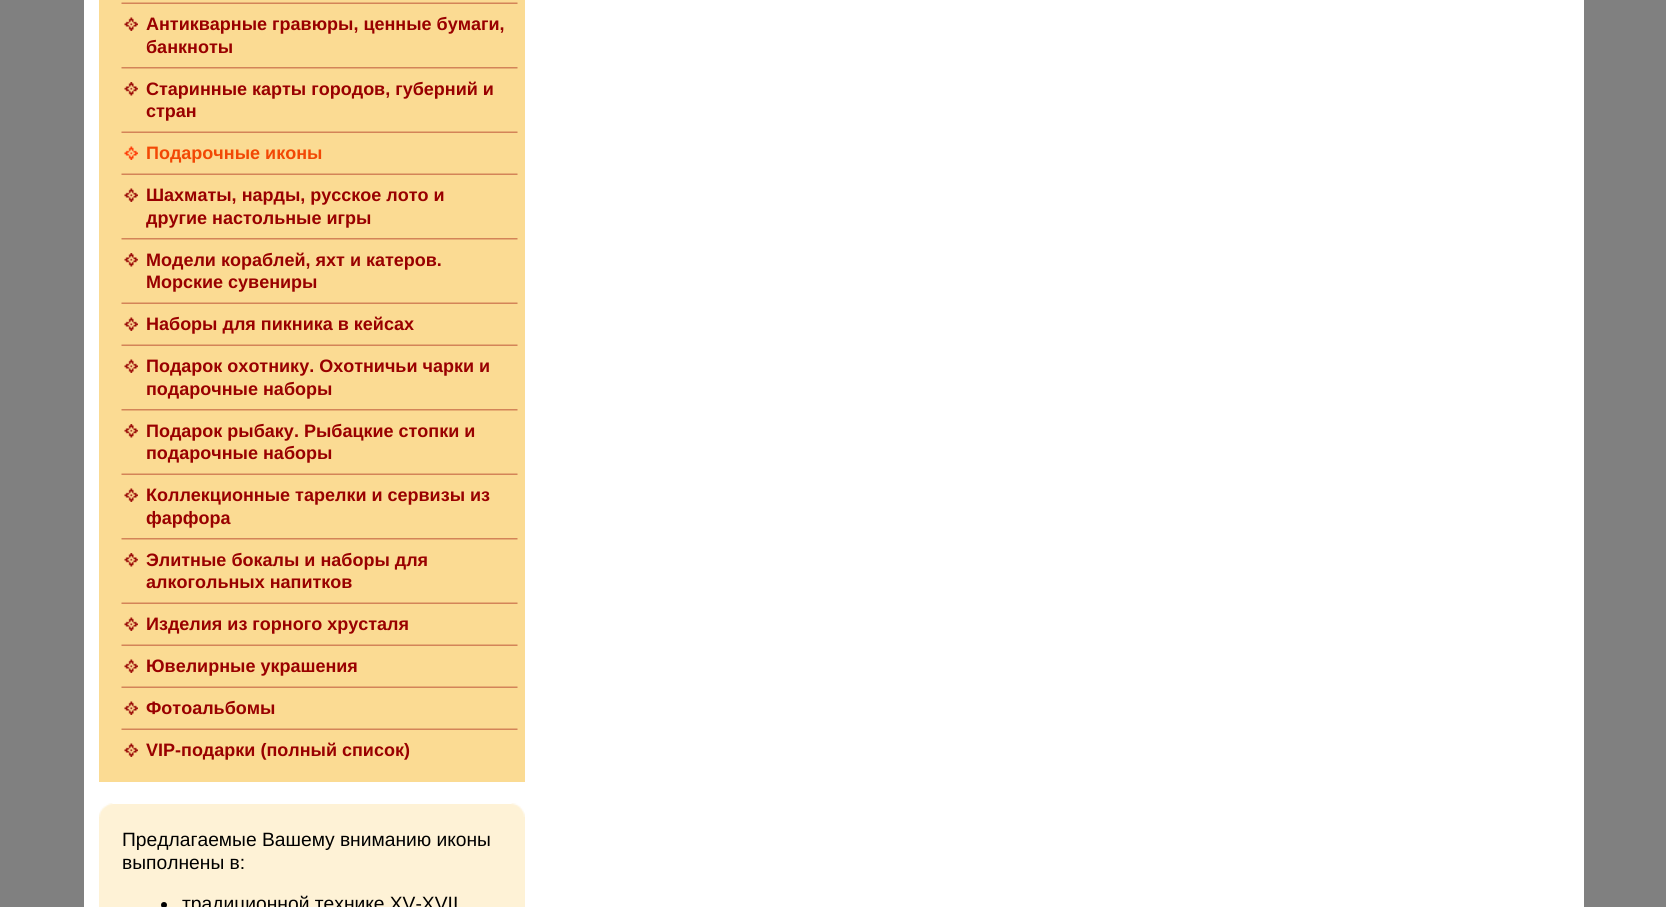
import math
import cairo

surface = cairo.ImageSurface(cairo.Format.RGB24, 1666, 907)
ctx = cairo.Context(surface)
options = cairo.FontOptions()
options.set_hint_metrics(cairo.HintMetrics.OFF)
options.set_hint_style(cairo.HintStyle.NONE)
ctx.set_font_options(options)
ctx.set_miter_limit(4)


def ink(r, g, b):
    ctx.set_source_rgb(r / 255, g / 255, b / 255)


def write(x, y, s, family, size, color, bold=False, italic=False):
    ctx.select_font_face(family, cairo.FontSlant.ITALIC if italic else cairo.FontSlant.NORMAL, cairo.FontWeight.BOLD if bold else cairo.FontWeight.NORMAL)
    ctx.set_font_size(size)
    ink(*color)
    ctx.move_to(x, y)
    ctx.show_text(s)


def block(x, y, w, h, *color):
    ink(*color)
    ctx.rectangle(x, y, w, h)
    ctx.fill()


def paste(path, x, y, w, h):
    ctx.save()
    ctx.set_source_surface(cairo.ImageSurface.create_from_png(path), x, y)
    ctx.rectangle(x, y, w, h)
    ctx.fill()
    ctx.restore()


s1 = dict(family="Liberation Sans", size=18, color=(153, 0, 0), bold=True)
s2 = dict(family="Liberation Sans", size=18, color=(242, 72, 5), bold=True)
s3 = dict(family="Liberation Sans", size=19.25, color=(0, 0, 0))

ink(128, 128, 128)
ctx.paint()
block(84, 0, 1500, 907, 255, 255, 255)
block(99, 0, 426, 782, 251, 219, 147)
paste("pic1.png", 121, 2, 397, 2)
paste("pic2.png", 124, 17, 14, 14)
write(146, 30, "Антикварные гравюры, ценные бумаги,", **s1)
write(146, 53, "банкноты", **s1)
paste("pic3.png", 121, 67, 397, 2)
paste("pic4.png", 124, 82, 14, 14)
write(146, 95, "Старинные карты городов, губерний и", **s1)
write(146, 117, "стран", **s1)
paste("pic1.png", 121, 131, 397, 2)
paste("pic5.png", 124, 146, 14, 14)
write(146, 159, "Подарочные иконы", **s2)
paste("pic1.png", 121, 173, 397, 2)
paste("pic2.png", 124, 188, 14, 14)
write(146, 201, "Шахматы, нарды, русское лото и", **s1)
write(146, 224, "другие настольные игры", **s1)
paste("pic3.png", 121, 238, 397, 2)
paste("pic4.png", 124, 253, 14, 14)
write(146, 266, "Модели кораблей, яхт и катеров.", **s1)
write(146, 288, "Морские сувениры", **s1)
paste("pic1.png", 121, 302, 397, 2)
paste("pic2.png", 124, 317, 14, 14)
write(146, 330, "Наборы для пикника в кейсах", **s1)
paste("pic1.png", 121, 344, 397, 2)
paste("pic2.png", 124, 359, 14, 14)
write(146, 372, "Подарок охотнику. Охотничьи чарки и", **s1)
write(146, 395, "подарочные наборы", **s1)
paste("pic3.png", 121, 409, 397, 2)
paste("pic4.png", 124, 424, 14, 14)
write(146, 437, "Подарок рыбаку. Рыбацкие стопки и", **s1)
write(146, 459, "подарочные наборы", **s1)
paste("pic1.png", 121, 473, 397, 2)
paste("pic2.png", 124, 488, 14, 14)
write(146, 501, "Коллекционные тарелки и сервизы из", **s1)
write(146, 524, "фарфора", **s1)
paste("pic3.png", 121, 538, 397, 2)
paste("pic4.png", 124, 553, 14, 14)
write(146, 566, "Элитные бокалы и наборы для", **s1)
write(146, 588, "алкогольных напитков", **s1)
paste("pic1.png", 121, 602, 397, 2)
paste("pic2.png", 124, 617, 14, 14)
write(146, 630, "Изделия из горного хрусталя", **s1)
paste("pic1.png", 121, 644, 397, 2)
paste("pic2.png", 124, 659, 14, 14)
write(146, 672, "Ювелирные украшения", **s1)
paste("pic1.png", 121, 686, 397, 2)
paste("pic2.png", 124, 701, 14, 14)
write(146, 714, "Фотоальбомы", **s1)
paste("pic1.png", 121, 728, 397, 2)
paste("pic2.png", 124, 743, 14, 14)
write(146, 756, "VIP-подарки (полный список)", **s1)
block(99, 804, 426, 103, 254, 242, 214)
paste("pic6.png", 99, 803, 14, 14)
paste("pic7.png", 511, 803, 14, 14)
write(122, 846, "Предлагаемые Вашему вниманию иконы", **s3)
write(122, 869, "выполнены в:", **s3)
ctx.new_path()
ctx.arc(164, 905, 3, 0, 2 * math.pi)
ctx.fill()
write(182, 910, "традиционной технике XV-XVII", **s3)
surface.write_to_png("screenshot.png")
